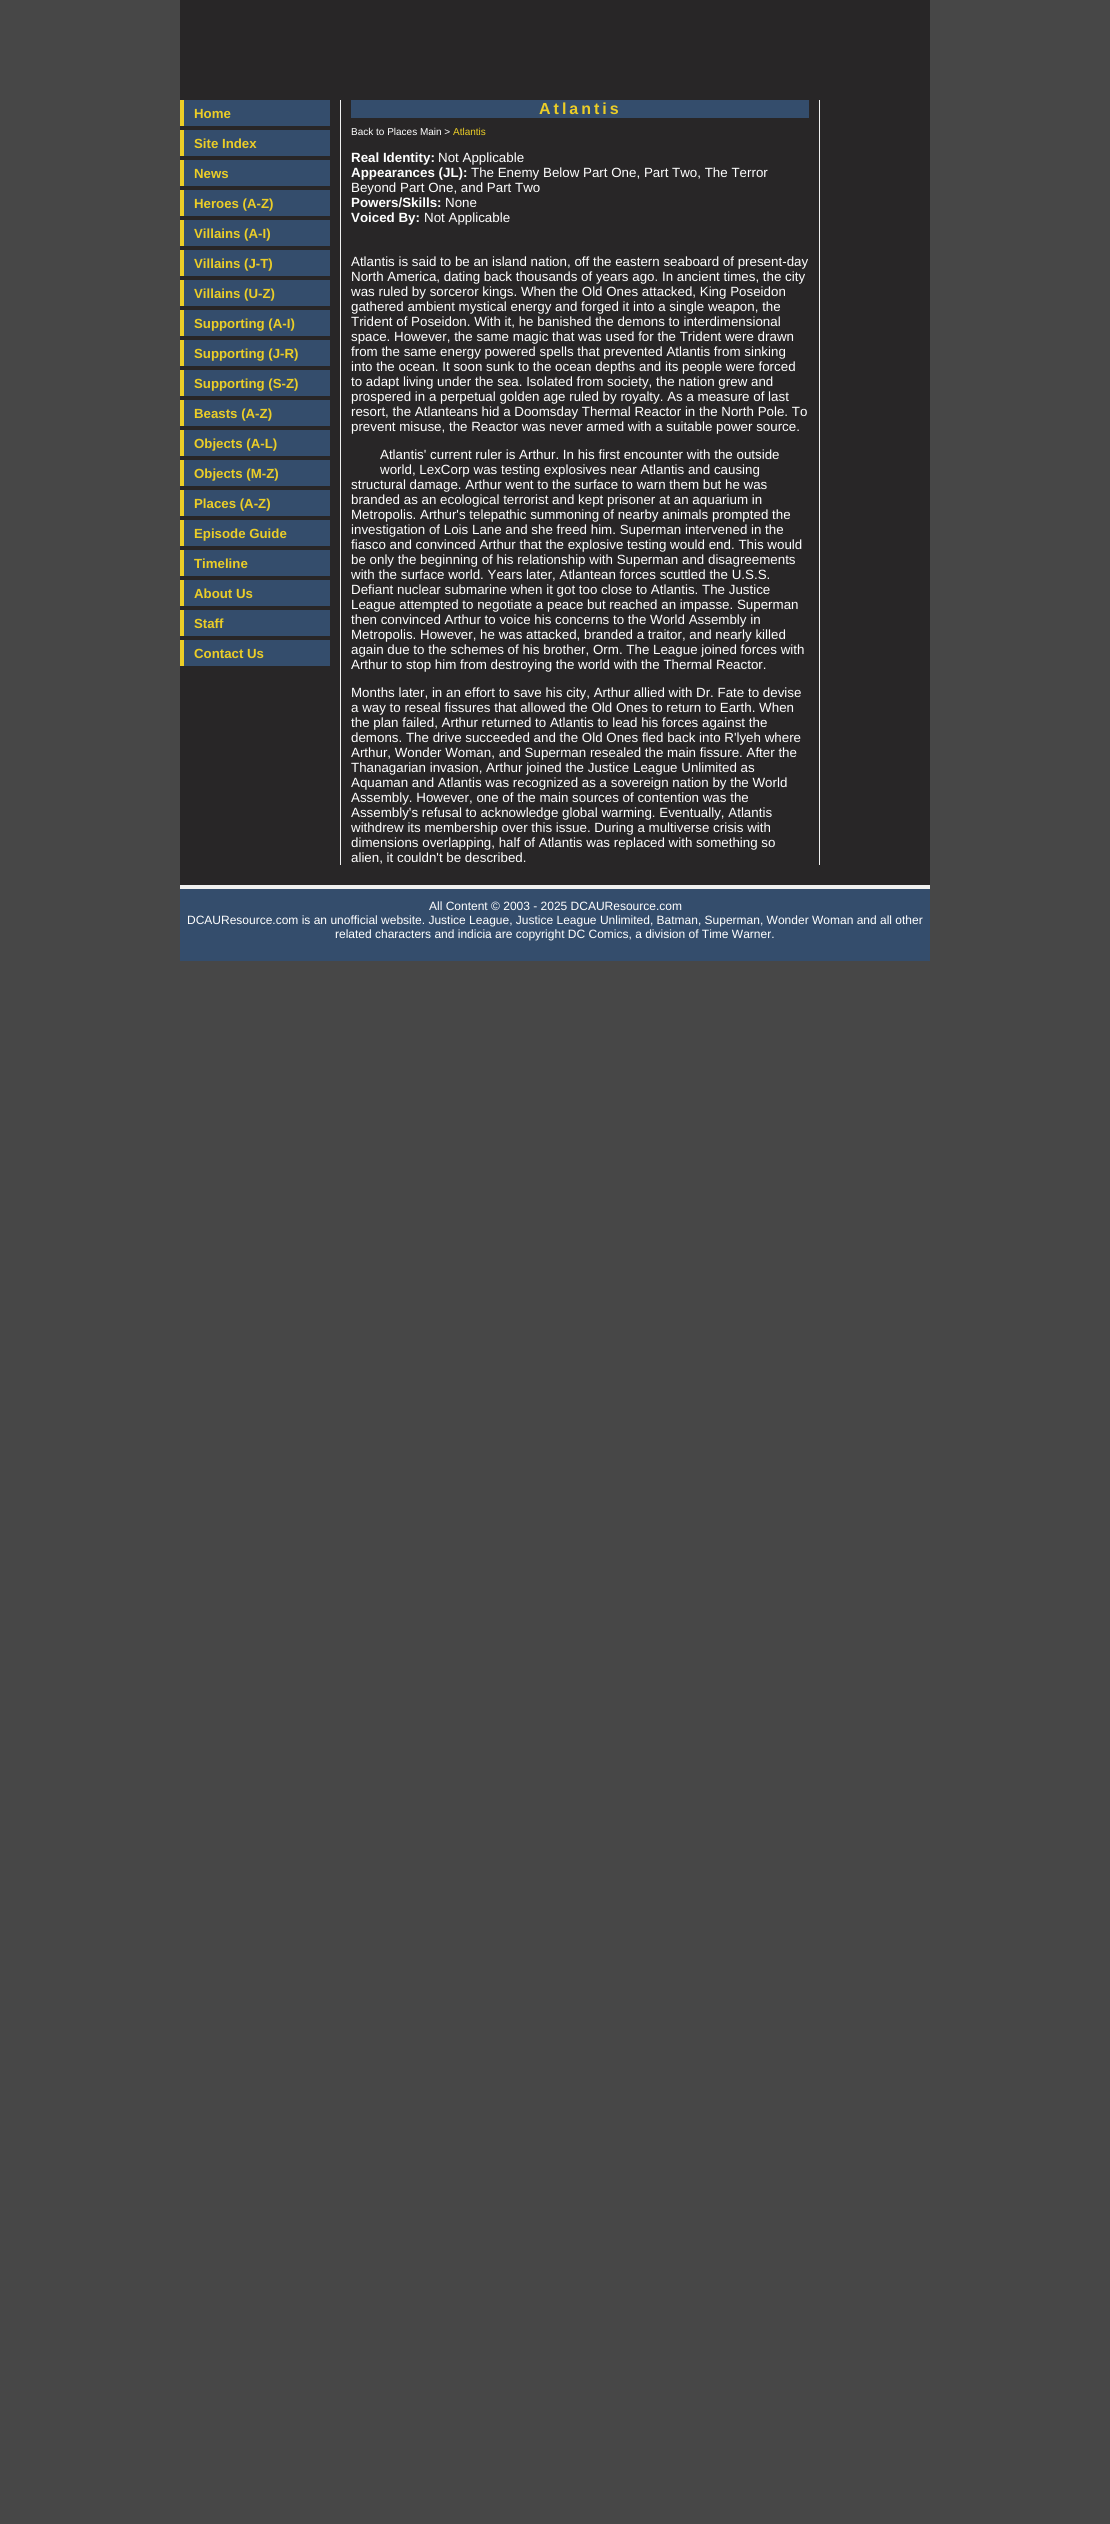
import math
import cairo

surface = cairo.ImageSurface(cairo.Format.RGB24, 1110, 2524)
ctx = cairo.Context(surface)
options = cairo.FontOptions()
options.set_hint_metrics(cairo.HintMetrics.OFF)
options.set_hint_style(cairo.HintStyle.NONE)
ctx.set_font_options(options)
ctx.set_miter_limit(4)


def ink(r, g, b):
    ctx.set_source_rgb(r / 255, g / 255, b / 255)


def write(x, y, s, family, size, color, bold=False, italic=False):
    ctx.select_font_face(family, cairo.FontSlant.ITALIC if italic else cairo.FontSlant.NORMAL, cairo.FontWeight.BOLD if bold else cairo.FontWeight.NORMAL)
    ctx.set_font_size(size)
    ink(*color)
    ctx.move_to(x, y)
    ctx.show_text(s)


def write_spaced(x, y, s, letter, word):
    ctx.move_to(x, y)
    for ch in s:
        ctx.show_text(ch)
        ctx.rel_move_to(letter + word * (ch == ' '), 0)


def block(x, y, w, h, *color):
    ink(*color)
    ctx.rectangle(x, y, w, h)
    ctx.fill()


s1 = dict(family="Liberation Sans", size=13.25, color=(235, 205, 39), bold=True)
s2 = dict(family="Liberation Sans", size=10, color=(255, 255, 255))
s3 = dict(family="Liberation Sans", size=10, color=(235, 205, 39))
s4 = dict(family="Liberation Sans", size=13.35, color=(255, 255, 255), bold=True)
s5 = dict(family="Liberation Sans", size=13.35, color=(255, 255, 255))
s6 = dict(family="Liberation Sans", size=12, color=(255, 255, 255))

ink(71, 71, 71)
ctx.paint()
block(180, 0, 750, 885, 40, 38, 39)
block(184, 100, 146, 26, 52, 77, 108)
block(180, 100, 4, 26, 235, 205, 39)
write(194, 118, "Home", **s1)
block(184, 130, 146, 26, 52, 77, 108)
block(180, 130, 4, 26, 235, 205, 39)
write(194, 148, "Site Index", **s1)
block(184, 160, 146, 26, 52, 77, 108)
block(180, 160, 4, 26, 235, 205, 39)
write(194, 178, "News", **s1)
block(184, 190, 146, 26, 52, 77, 108)
block(180, 190, 4, 26, 235, 205, 39)
write(194, 208, "Heroes (A-Z)", **s1)
block(184, 220, 146, 26, 52, 77, 108)
block(180, 220, 4, 26, 235, 205, 39)
write(194, 238, "Villains (A-I)", **s1)
block(184, 250, 146, 26, 52, 77, 108)
block(180, 250, 4, 26, 235, 205, 39)
write(194, 268, "Villains (J-T)", **s1)
block(184, 280, 146, 26, 52, 77, 108)
block(180, 280, 4, 26, 235, 205, 39)
write(194, 298, "Villains (U-Z)", **s1)
block(184, 310, 146, 26, 52, 77, 108)
block(180, 310, 4, 26, 235, 205, 39)
write(194, 328, "Supporting (A-I)", **s1)
block(184, 340, 146, 26, 52, 77, 108)
block(180, 340, 4, 26, 235, 205, 39)
write(194, 358, "Supporting (J-R)", **s1)
block(184, 370, 146, 26, 52, 77, 108)
block(180, 370, 4, 26, 235, 205, 39)
write(194, 388, "Supporting (S-Z)", **s1)
block(184, 400, 146, 26, 52, 77, 108)
block(180, 400, 4, 26, 235, 205, 39)
write(194, 418, "Beasts (A-Z)", **s1)
block(184, 430, 146, 26, 52, 77, 108)
block(180, 430, 4, 26, 235, 205, 39)
write(194, 448, "Objects (A-L)", **s1)
block(184, 460, 146, 26, 52, 77, 108)
block(180, 460, 4, 26, 235, 205, 39)
write(194, 478, "Objects (M-Z)", **s1)
block(184, 490, 146, 26, 52, 77, 108)
block(180, 490, 4, 26, 235, 205, 39)
write(194, 508, "Places (A-Z)", **s1)
block(184, 520, 146, 26, 52, 77, 108)
block(180, 520, 4, 26, 235, 205, 39)
write(194, 538, "Episode Guide", **s1)
block(184, 550, 146, 26, 52, 77, 108)
block(180, 550, 4, 26, 235, 205, 39)
write(194, 568, "Timeline", **s1)
block(184, 580, 146, 26, 52, 77, 108)
block(180, 580, 4, 26, 235, 205, 39)
write(194, 598, "About Us", **s1)
block(184, 610, 146, 26, 52, 77, 108)
block(180, 610, 4, 26, 235, 205, 39)
write(194, 628, "Staff", **s1)
block(184, 640, 146, 26, 52, 77, 108)
block(180, 640, 4, 26, 235, 205, 39)
write(194, 658, "Contact Us", **s1)
block(819, 100, 1, 765, 240, 240, 240)
block(340, 100, 1, 765, 240, 240, 240)
block(351, 100, 458, 18, 52, 77, 108)
ctx.set_font_size(16)
ink(235, 205, 39)
write_spaced(539, 114, "Atlantis", 3, 0)
write(351, 135, "Back to Places Main >", **s2)
write(453, 135, "Atlantis", **s3)
write(351, 162, "Real Identity:", **s4)
write(438, 162, "Not Applicable", **s5)
write(351, 177, "Appearances (JL):", **s4)
write(471, 177, "The Enemy Below Part One, Part Two, The Terror", **s5)
write(351, 192, "Beyond Part One, and Part Two", **s5)
write(351, 207, "Powers/Skills:", **s4)
write(445, 207, "None", **s5)
write(351, 222, "Voiced By:", **s4)
write(424, 222, "Not Applicable", **s5)
write(351, 266, "Atlantis is said to be an island nation, off the eastern seaboard of present-day", **s5)
write(351, 281, "North America, dating back thousands of years ago. In ancient times, the city", **s5)
write(351, 296, "was ruled by sorceror kings. When the Old Ones attacked, King Poseidon", **s5)
write(351, 311, "gathered ambient mystical energy and forged it into a single weapon, the", **s5)
write(351, 326, "Trident of Poseidon. With it, he banished the demons to interdimensional", **s5)
write(351, 341, "space. However, the same magic that was used for the Trident were drawn", **s5)
write(351, 356, "from the same energy powered spells that prevented Atlantis from sinking", **s5)
write(351, 371, "into the ocean. It soon sunk to the ocean depths and its people were forced", **s5)
write(351, 386, "to adapt living under the sea. Isolated from society, the nation grew and", **s5)
write(351, 401, "prospered in a perpetual golden age ruled by royalty. As a measure of last", **s5)
write(351, 416, "resort, the Atlanteans hid a Doomsday Thermal Reactor in the North Pole. To", **s5)
write(351, 431, "prevent misuse, the Reactor was never armed with a suitable power source.", **s5)
write(380, 459, "Atlantis' current ruler is Arthur. In his first encounter with the outside", **s5)
write(380, 474, "world, LexCorp was testing explosives near Atlantis and causing", **s5)
write(351, 489, "structural damage. Arthur went to the surface to warn them but he was", **s5)
write(351, 504, "branded as an ecological terrorist and kept prisoner at an aquarium in", **s5)
write(351, 519, "Metropolis. Arthur's telepathic summoning of nearby animals prompted the", **s5)
write(351, 534, "investigation of Lois Lane and she freed him. Superman intervened in the", **s5)
write(351, 549, "fiasco and convinced Arthur that the explosive testing would end. This would", **s5)
write(351, 564, "be only the beginning of his relationship with Superman and disagreements", **s5)
write(351, 579, "with the surface world. Years later, Atlantean forces scuttled the U.S.S.", **s5)
write(351, 594, "Defiant nuclear submarine when it got too close to Atlantis. The Justice", **s5)
write(351, 609, "League attempted to negotiate a peace but reached an impasse. Superman", **s5)
write(351, 624, "then convinced Arthur to voice his concerns to the World Assembly in", **s5)
write(351, 639, "Metropolis. However, he was attacked, branded a traitor, and nearly killed", **s5)
write(351, 654, "again due to the schemes of his brother, Orm. The League joined forces with", **s5)
write(351, 669, "Arthur to stop him from destroying the world with the Thermal Reactor.", **s5)
write(351, 697, "Months later, in an effort to save his city, Arthur allied with Dr. Fate to devise", **s5)
write(351, 712, "a way to reseal fissures that allowed the Old Ones to return to Earth. When", **s5)
write(351, 727, "the plan failed, Arthur returned to Atlantis to lead his forces against the", **s5)
write(351, 742, "demons. The drive succeeded and the Old Ones fled back into R'lyeh where", **s5)
write(351, 757, "Arthur, Wonder Woman, and Superman resealed the main fissure. After the", **s5)
write(351, 772, "Thanagarian invasion, Arthur joined the Justice League Unlimited as", **s5)
write(351, 787, "Aquaman and Atlantis was recognized as a sovereign nation by the World", **s5)
write(351, 802, "Assembly. However, one of the main sources of contention was the", **s5)
write(351, 817, "Assembly's refusal to acknowledge global warming. Eventually, Atlantis", **s5)
write(351, 832, "withdrew its membership over this issue. During a multiverse crisis with", **s5)
write(351, 847, "dimensions overlapping, half of Atlantis was replaced with something so", **s5)
write(351, 862, "alien, it couldn't be described.", **s5)
block(180, 889, 750, 72, 52, 77, 108)
block(180, 885, 750, 4, 240, 240, 240)
write(429, 910, "All Content © 2003 - 2025 DCAUResource.com", **s6)
write(187, 924, "DCAUResource.com is an unofficial website. Justice League, Justice League Unlimited, Batman, Superman, Wonder Woman and all other", **s6)
write(335, 938, "related characters and indicia are copyright DC Comics, a division of Time Warner.", **s6)
surface.write_to_png("screenshot.png")
